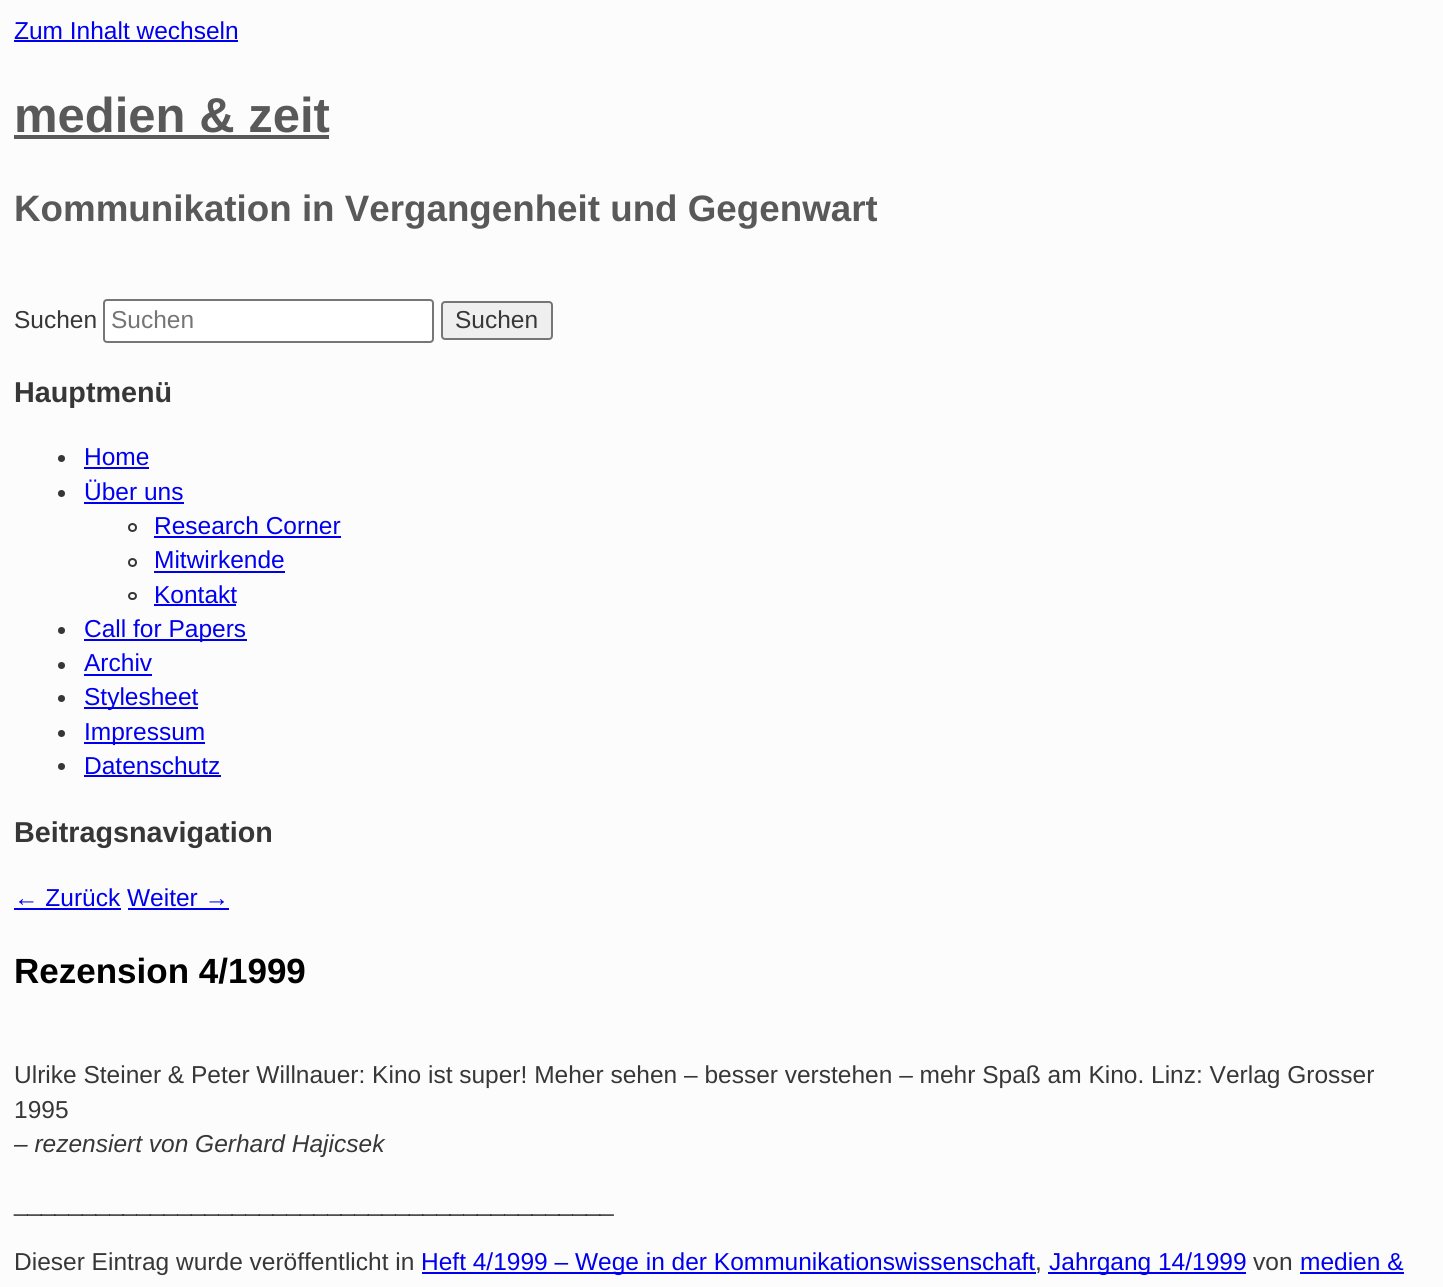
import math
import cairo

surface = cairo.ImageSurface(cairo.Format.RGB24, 1443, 1287)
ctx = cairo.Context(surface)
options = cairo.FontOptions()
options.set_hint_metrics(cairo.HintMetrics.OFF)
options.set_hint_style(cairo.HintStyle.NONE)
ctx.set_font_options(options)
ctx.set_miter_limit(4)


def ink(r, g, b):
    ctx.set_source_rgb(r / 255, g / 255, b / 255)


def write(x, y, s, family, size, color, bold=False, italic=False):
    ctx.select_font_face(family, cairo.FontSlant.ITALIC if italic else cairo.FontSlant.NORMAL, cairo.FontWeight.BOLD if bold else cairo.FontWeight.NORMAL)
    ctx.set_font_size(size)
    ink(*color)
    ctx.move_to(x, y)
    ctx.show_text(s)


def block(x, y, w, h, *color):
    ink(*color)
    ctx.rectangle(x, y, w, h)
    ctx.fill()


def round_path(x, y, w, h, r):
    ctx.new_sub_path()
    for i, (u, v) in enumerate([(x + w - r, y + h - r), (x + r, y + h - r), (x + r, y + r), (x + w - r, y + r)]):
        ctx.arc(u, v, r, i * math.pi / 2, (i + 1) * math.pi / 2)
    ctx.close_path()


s1 = dict(family="Liberation Sans", size=24.5, color=(0, 0, 238))
s2 = dict(family="Liberation Sans", size=49, color=(89, 89, 89), bold=True)
s3 = dict(family="Liberation Sans", size=36.75, color=(89, 89, 89), bold=True)
s4 = dict(family="Liberation Sans", size=24.5, color=(55, 55, 55))
s5 = dict(family="Liberation Sans", size=24.5, color=(117, 117, 117))
s6 = dict(family="Liberation Sans", size=28.75, color=(55, 55, 55), bold=True)
s7 = dict(family="Liberation Sans", size=35, color=(0, 0, 0), bold=True)
s8 = dict(family="Liberation Sans", size=24.5, color=(55, 55, 55), italic=True)

ink(252, 252, 252)
ctx.paint()
write(14, 39, "Zum Inhalt wechseln", **s1)
block(14, 40, 224, 2, 0, 0, 238)
write(14, 132, "medien & zeit", **s2)
block(14, 135, 315, 4, 89, 89, 89)
write(14, 221, "Kommunikation in Vergangenheit und Gegenwart", **s3)
write(14, 328, "Suchen", **s4)
ink(255, 255, 255)
round_path(104, 300, 329, 42, 3)
ctx.fill_preserve()
ink(118, 118, 118)
ctx.stroke()
write(111, 328, "Suchen", **s5)
ink(239, 239, 239)
round_path(442, 302, 110, 37, 3)
ctx.fill_preserve()
ink(118, 118, 118)
ctx.stroke()
write(455, 328, "Suchen", **s4)
write(14, 402, "Hauptmenü", **s6)
ctx.new_path()
ctx.arc(61.5, 458.5, 3.5, 0, 2 * math.pi)
ctx.fill()
write(84, 465, "Home", **s1)
block(84, 467, 65, 2, 0, 0, 238)
ink(55, 55, 55)
ctx.new_path()
ctx.arc(61.5, 493.5, 3.5, 0, 2 * math.pi)
ctx.fill()
write(84, 500, "Über uns", **s1)
block(84, 502, 100, 2, 0, 0, 238)
ctx.new_path()
ctx.arc(132.5, 527.5, 3.5, 0, 2 * math.pi)
ink(55, 55, 55)
ctx.stroke()
write(154, 534, "Research Corner", **s1)
block(154, 536, 187, 2, 0, 0, 238)
ctx.new_path()
ctx.arc(132.5, 562.5, 3.5, 0, 2 * math.pi)
ink(55, 55, 55)
ctx.stroke()
write(154, 568, "Mitwirkende", **s1)
block(154, 571, 131, 2, 0, 0, 238)
round_path(129, 593, 7, 6, 3)
ink(55, 55, 55)
ctx.stroke()
write(154, 603, "Kontakt", **s1)
block(154, 604, 82, 2, 0, 0, 238)
ink(55, 55, 55)
ctx.new_path()
ctx.arc(61.5, 630.5, 3.5, 0, 2 * math.pi)
ctx.fill()
block(84, 639, 163, 2, 0, 0, 238)
write(84, 637, "Call for Papers", **s1)
ink(55, 55, 55)
ctx.new_path()
ctx.arc(61.5, 665.5, 3.5, 0, 2 * math.pi)
ctx.fill()
write(84, 671, "Archiv", **s1)
block(84, 674, 68, 2, 0, 0, 238)
ink(55, 55, 55)
ctx.new_path()
ctx.arc(61.5, 698.5, 3.5, 0, 2 * math.pi)
ctx.fill()
block(84, 707, 114, 2, 0, 0, 238)
write(84, 705, "Stylesheet", **s1)
ink(55, 55, 55)
ctx.new_path()
ctx.arc(61.5, 733.5, 3.5, 0, 2 * math.pi)
ctx.fill()
block(84, 742, 121, 2, 0, 0, 238)
write(84, 740, "Impressum", **s1)
ink(55, 55, 55)
ctx.new_path()
ctx.arc(61.5, 766.5, 3.5, 0, 2 * math.pi)
ctx.fill()
write(84, 774, "Datenschutz", **s1)
block(84, 775, 137, 2, 0, 0, 238)
write(14, 842, "Beitragsnavigation", **s6)
write(14, 906, "← Zurück Weiter →", **s1)
block(14, 908, 107, 2, 0, 0, 238)
block(128, 908, 101, 2, 0, 0, 238)
write(14, 983, "Rezension 4/1999", **s7)
write(14, 1083, "Ulrike Steiner & Peter Willnauer: Kino ist super! Meher sehen – besser verstehen – mehr Spaß am Kino. Linz: Verlag Grosser", **s4)
write(14, 1118, "1995", **s4)
write(14, 1152, "– rezensiert von Gerhard Hajicsek", **s8)
write(14, 1211, "____________________________________________", **s4)
write(14, 1270, "Dieser Eintrag wurde veröffentlicht in", **s4)
block(422, 1272, 614, 2, 0, 0, 238)
write(421, 1270, "Heft 4/1999 – Wege in der Kommunikationswissenschaft", **s1)
write(1035, 1270, ",", **s4)
block(1048, 1272, 198, 2, 0, 0, 238)
write(1049, 1270, "Jahrgang 14/1999", **s1)
write(1253, 1270, "von", **s4)
write(1300, 1270, "medien &", **s1)
block(1300, 1272, 104, 2, 0, 0, 238)
surface.write_to_png("screenshot.png")
